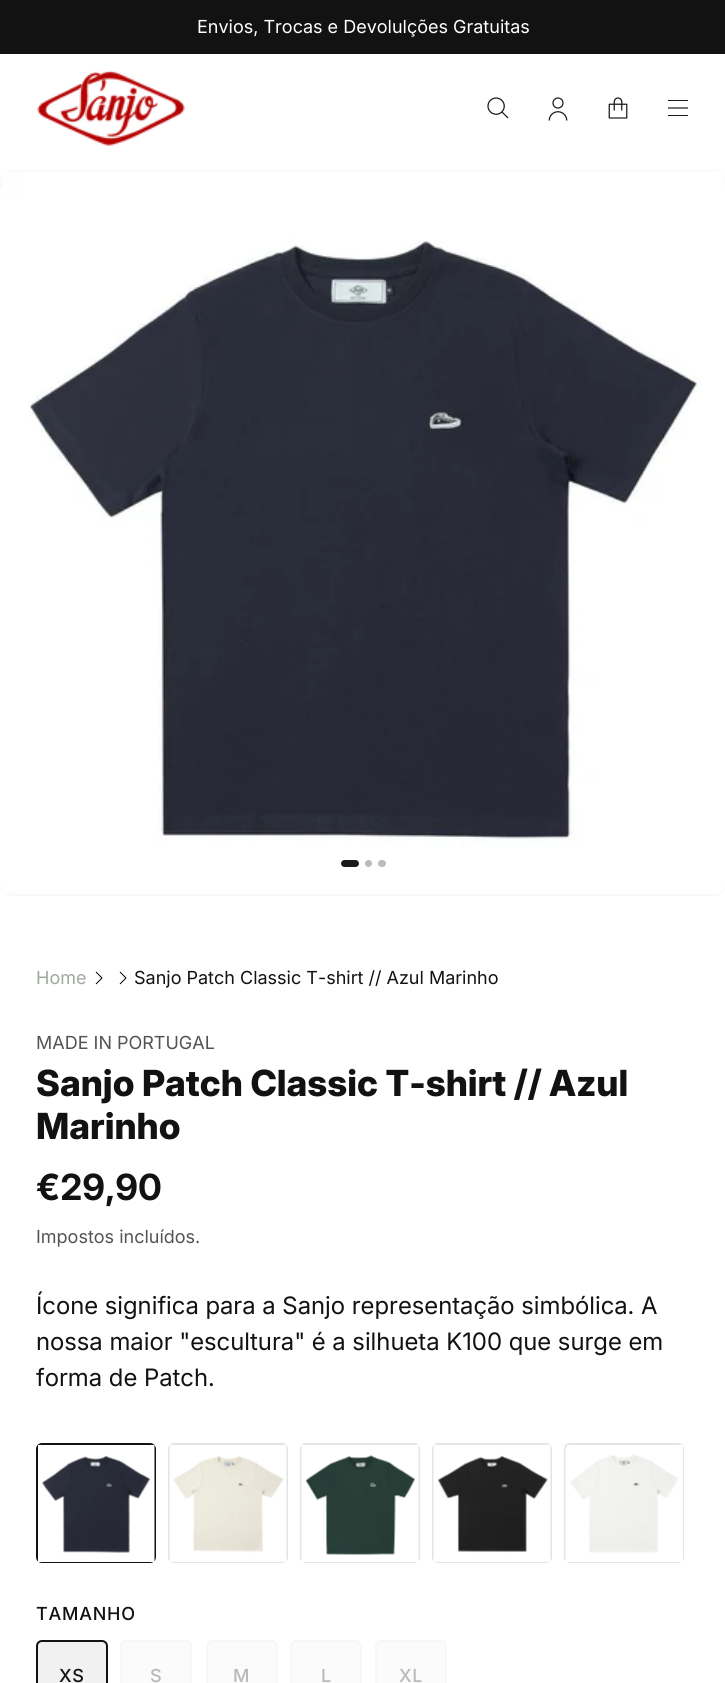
import math
import cairo

surface = cairo.ImageSurface(cairo.Format.RGB24, 725, 1683)
ctx = cairo.Context(surface)
options = cairo.FontOptions()
options.set_hint_metrics(cairo.HintMetrics.OFF)
options.set_hint_style(cairo.HintStyle.NONE)
ctx.set_font_options(options)
ctx.set_miter_limit(4)


def ink(r, g, b):
    ctx.set_source_rgb(r / 255, g / 255, b / 255)


def write(x, y, s, family, size, color, bold=False, italic=False):
    ctx.select_font_face(family, cairo.FontSlant.ITALIC if italic else cairo.FontSlant.NORMAL, cairo.FontWeight.BOLD if bold else cairo.FontWeight.NORMAL)
    ctx.set_font_size(size)
    ink(*color)
    ctx.move_to(x, y)
    ctx.show_text(s)


def write_spaced(x, y, s, letter, word):
    ctx.move_to(x, y)
    for ch in s:
        ctx.show_text(ch)
        ctx.rel_move_to(letter + word * (ch == ' '), 0)


def block(x, y, w, h, *color):
    ink(*color)
    ctx.rectangle(x, y, w, h)
    ctx.fill()


def round_path(x, y, w, h, r):
    ctx.new_sub_path()
    for i, (u, v) in enumerate([(x + w - r, y + h - r), (x + r, y + h - r), (x + r, y + r), (x + w - r, y + r)]):
        ctx.arc(u, v, r, i * math.pi / 2, (i + 1) * math.pi / 2)
    ctx.close_path()


def paste(path, x, y, w, h):
    ctx.save()
    ctx.set_source_surface(cairo.ImageSurface.create_from_png(path), x, y)
    ctx.rectangle(x, y, w, h)
    ctx.fill()
    ctx.restore()


s1 = dict(family="Inter", size=18, color=(255, 255, 255))
s2 = dict(family="Inter", size=18, color=(159, 169, 160))
s3 = dict(family="Inter", size=18, color=(18, 18, 18))
s4 = dict(family="Inter", size=18, color=(82, 84, 83))
s5 = dict(family="Inter ExtraBold", size=36, color=(18, 18, 18))
s6 = dict(family="Inter", size=36, color=(18, 18, 18), bold=True)
s7 = dict(family="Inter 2", size=24, color=(18, 18, 18))

ink(255, 255, 255)
ctx.paint()
block(0, 0, 725, 54, 18, 18, 18)
write(197, 33, "Envios, Trocas e Devolulções Gratuitas", **s1)
paste("pic1.png", 37, 70, 148, 76)
paste("pic2.png", 487, 97, 22, 22)
paste("pic3.png", 548, 97, 20, 24)
paste("pic4.png", 608, 97, 20, 22)
block(668, 100, 20, 1, 24, 27, 25)
block(668, 115, 20, 1, 24, 27, 25)
ctx.new_path()
ctx.move_to(668, 108)
ctx.line_to(688, 108)
ctx.set_line_width(1.2)
ctx.set_line_join(cairo.LineJoin.ROUND)
ctx.stroke()
ink(246, 247, 246)
round_path(0, 170, 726, 726, 12)
ctx.fill()
paste("pic5.png", 0, 171, 725, 724)
ink(24, 27, 25)
round_path(341, 860, 18, 7, 3.5)
ctx.fill()
ink(186, 187, 186)
ctx.arc(368.5, 863.5, 3.5, 0, 2 * math.pi)
ctx.fill()
round_path(378, 860, 8, 7, 3.5)
ctx.fill()
write(36, 984, "Home", **s2)
ctx.new_path()
ctx.move_to(96, 984)
ctx.line_to(102, 978)
ctx.line_to(96, 972)
ctx.move_to(120, 984)
ctx.line_to(126, 978)
ctx.line_to(120, 972)
ink(0, 0, 0)
ctx.set_line_width(1)
ctx.stroke()
write(134, 984, "Sanjo Patch Classic T-shirt // Azul Marinho", **s3)
write(36, 1049, "MADE IN PORTUGAL", **s4)
write(36, 1096, "Sanjo Patch Classic T-shirt // Azul", **s5)
write(36, 1139, "Marinho", **s5)
write(36, 1200, "€29,90", **s6)
write(36, 1243, "Impostos incluídos.", **s4)
write(36, 1314, "Ícone significa para a Sanjo representação simbólica. A", **s7)
write(36, 1350, "nossa maior \"escultura\" é a silhueta K100 que surge em", **s7)
write(36, 1386, "forma de Patch.", **s7)
round_path(37, 1444, 118, 118, 5)
ctx.set_line_width(2)
ctx.set_line_join(cairo.LineJoin.MITER)
ctx.stroke()
paste("pic6.png", 38, 1445, 117, 117)
round_path(169, 1444, 118, 118, 5)
ink(226, 229, 227)
ctx.stroke()
paste("pic7.png", 169, 1445, 118, 117)
round_path(301, 1444, 118, 118, 5)
ctx.stroke()
paste("pic8.png", 301, 1445, 118, 117)
round_path(433, 1444, 118, 118, 5)
ctx.stroke()
paste("pic9.png", 433, 1445, 118, 117)
round_path(565, 1444, 118, 118, 5)
ctx.stroke()
paste("pic10.png", 565, 1445, 118, 117)
ctx.select_font_face("Inter Medium")
ctx.set_font_size(18)
ink(18, 18, 18)
write_spaced(36, 1620, "TAMANHO", 0.75, 0)
ink(241, 241, 241)
round_path(37, 1641, 70, 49, 5)
ctx.fill_preserve()
ink(18, 18, 18)
ctx.stroke()
write_spaced(59, 1682, "XS", 0.75, 0)
ink(251, 251, 251)
round_path(121, 1641, 70, 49, 5)
ctx.fill_preserve()
ink(246, 247, 247)
ctx.stroke()
ink(184, 184, 184)
write_spaced(150, 1682, "S", 0.75, 0)
ink(251, 251, 251)
round_path(207, 1641, 70, 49, 5)
ctx.fill_preserve()
ink(246, 247, 247)
ctx.stroke()
ink(184, 184, 184)
write_spaced(233, 1682, "M", 0.75, 0)
ink(251, 251, 251)
round_path(291, 1641, 70, 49, 5)
ctx.fill_preserve()
ink(246, 247, 247)
ctx.stroke()
ink(184, 184, 184)
write_spaced(321, 1682, "L", 0.75, 0)
ink(251, 251, 251)
round_path(376, 1641, 70, 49, 5)
ctx.fill_preserve()
ink(246, 247, 247)
ctx.stroke()
ink(184, 184, 184)
write_spaced(399, 1682, "XL", 0.75, 0)
surface.write_to_png("screenshot.png")
